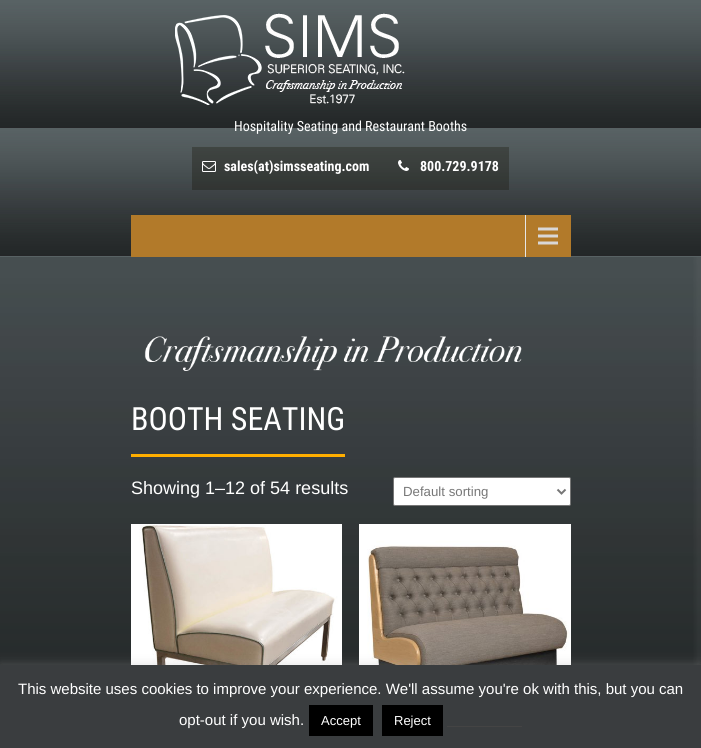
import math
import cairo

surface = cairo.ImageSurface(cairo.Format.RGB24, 701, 748)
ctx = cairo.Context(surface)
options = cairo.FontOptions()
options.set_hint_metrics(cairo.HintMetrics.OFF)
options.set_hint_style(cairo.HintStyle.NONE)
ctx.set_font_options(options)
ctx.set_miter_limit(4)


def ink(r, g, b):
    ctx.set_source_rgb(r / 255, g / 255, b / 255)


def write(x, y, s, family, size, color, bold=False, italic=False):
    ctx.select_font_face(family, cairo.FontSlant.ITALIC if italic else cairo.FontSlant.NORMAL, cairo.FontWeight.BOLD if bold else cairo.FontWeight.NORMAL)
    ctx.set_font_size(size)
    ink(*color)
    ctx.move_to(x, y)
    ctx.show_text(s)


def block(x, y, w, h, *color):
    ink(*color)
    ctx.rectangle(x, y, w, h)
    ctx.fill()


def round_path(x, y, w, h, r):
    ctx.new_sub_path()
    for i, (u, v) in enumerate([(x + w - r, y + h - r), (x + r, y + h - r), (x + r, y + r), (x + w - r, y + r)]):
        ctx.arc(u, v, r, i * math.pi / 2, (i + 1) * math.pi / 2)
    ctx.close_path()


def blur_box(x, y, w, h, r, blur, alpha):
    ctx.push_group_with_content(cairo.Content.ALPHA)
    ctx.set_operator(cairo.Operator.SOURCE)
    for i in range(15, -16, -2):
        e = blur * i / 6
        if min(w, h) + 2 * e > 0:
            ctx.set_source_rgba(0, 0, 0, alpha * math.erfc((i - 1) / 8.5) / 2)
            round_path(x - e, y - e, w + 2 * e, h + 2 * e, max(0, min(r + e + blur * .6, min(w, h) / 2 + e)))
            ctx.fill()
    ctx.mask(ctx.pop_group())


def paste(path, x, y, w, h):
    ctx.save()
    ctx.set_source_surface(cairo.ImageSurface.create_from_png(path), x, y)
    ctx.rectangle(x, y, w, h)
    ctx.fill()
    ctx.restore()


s1 = dict(family="Roboto Condensed", size=14, color=(255, 255, 255))
s2 = dict(family="Roboto Condensed", size=14, color=(255, 255, 255), bold=True)
s3 = dict(family="Roboto Condensed", size=32, color=(255, 255, 255))
s4 = dict(family="Arimo", size=18, color=(255, 255, 255))
s5 = dict(family="Liberation Sans", size=13.25, color=(119, 119, 119))
s6 = dict(family="Arimo", size=15, color=(255, 255, 255))
s7 = dict(family="Arimo", size=13, color=(255, 255, 255))

ink(255, 255, 255)
ctx.paint()
paste("pic1.png", 0, 257, 701, 408)
paste("pic2.png", 0, 0, 701, 257)
paste("pic3.png", 175, 13, 230, 92)
write(234, 131, "Hospitality Seating and Restaurant Booths", **s1)
ctx.set_source_rgba(0.078, 0.063, 0, 0.3)
ctx.rectangle(192, 147, 317, 43)
ctx.fill()
paste("pic4.png", 202, 161, 14, 11)
write(224, 171, "sales(at)simsseating.com", **s2)
paste("pic5.png", 398, 160, 11, 11)
write(420, 171, "800.729.9178", **s2)
block(131, 215, 440, 42, 178, 122, 42)
paste("pic6.png", 525, 215, 33, 42)
paste("pic7.png", 144, 336, 378, 35)
block(131, 454, 214, 3, 255, 174, 0)
write(131, 430, "BOOTH SEATING", **s3)
write(131, 494, "Showing 1–12 of 54 results", **s4)
round_path(393.5, 477.5, 177, 28, 1.5)
ctx.fill_preserve()
ink(118, 118, 118)
ctx.set_line_width(1)
ctx.stroke()
ctx.new_path()
ctx.move_to(557.5, 489.5)
ctx.line_to(561.5, 493.5)
ctx.line_to(565.5, 489.5)
ink(119, 119, 119)
ctx.set_line_width(2)
ctx.stroke()
write(403, 496, "Default sorting", **s5)
paste("pic8.png", 131, 524, 211, 141)
paste("pic9.png", 359, 524, 212, 141)
ink(172, 171, 171)
blur_box(0, 664, 701, 83, 0, 5, 0.3)
block(0, 665, 701, 83, 58, 61, 63)
write(18, 694, "This website uses cookies to improve your experience. We'll assume you're ok with this, but you can", **s6)
write(179, 725, "opt-out if you wish.", **s6)
block(309, 705, 64, 31, 0, 0, 0)
write(321, 725, "Accept", **s7)
block(382, 705, 61, 31, 0, 0, 0)
write(394, 725, "Reject", **s7)
block(447, 726, 75, 1, 68, 68, 68)
surface.write_to_png("screenshot.png")
